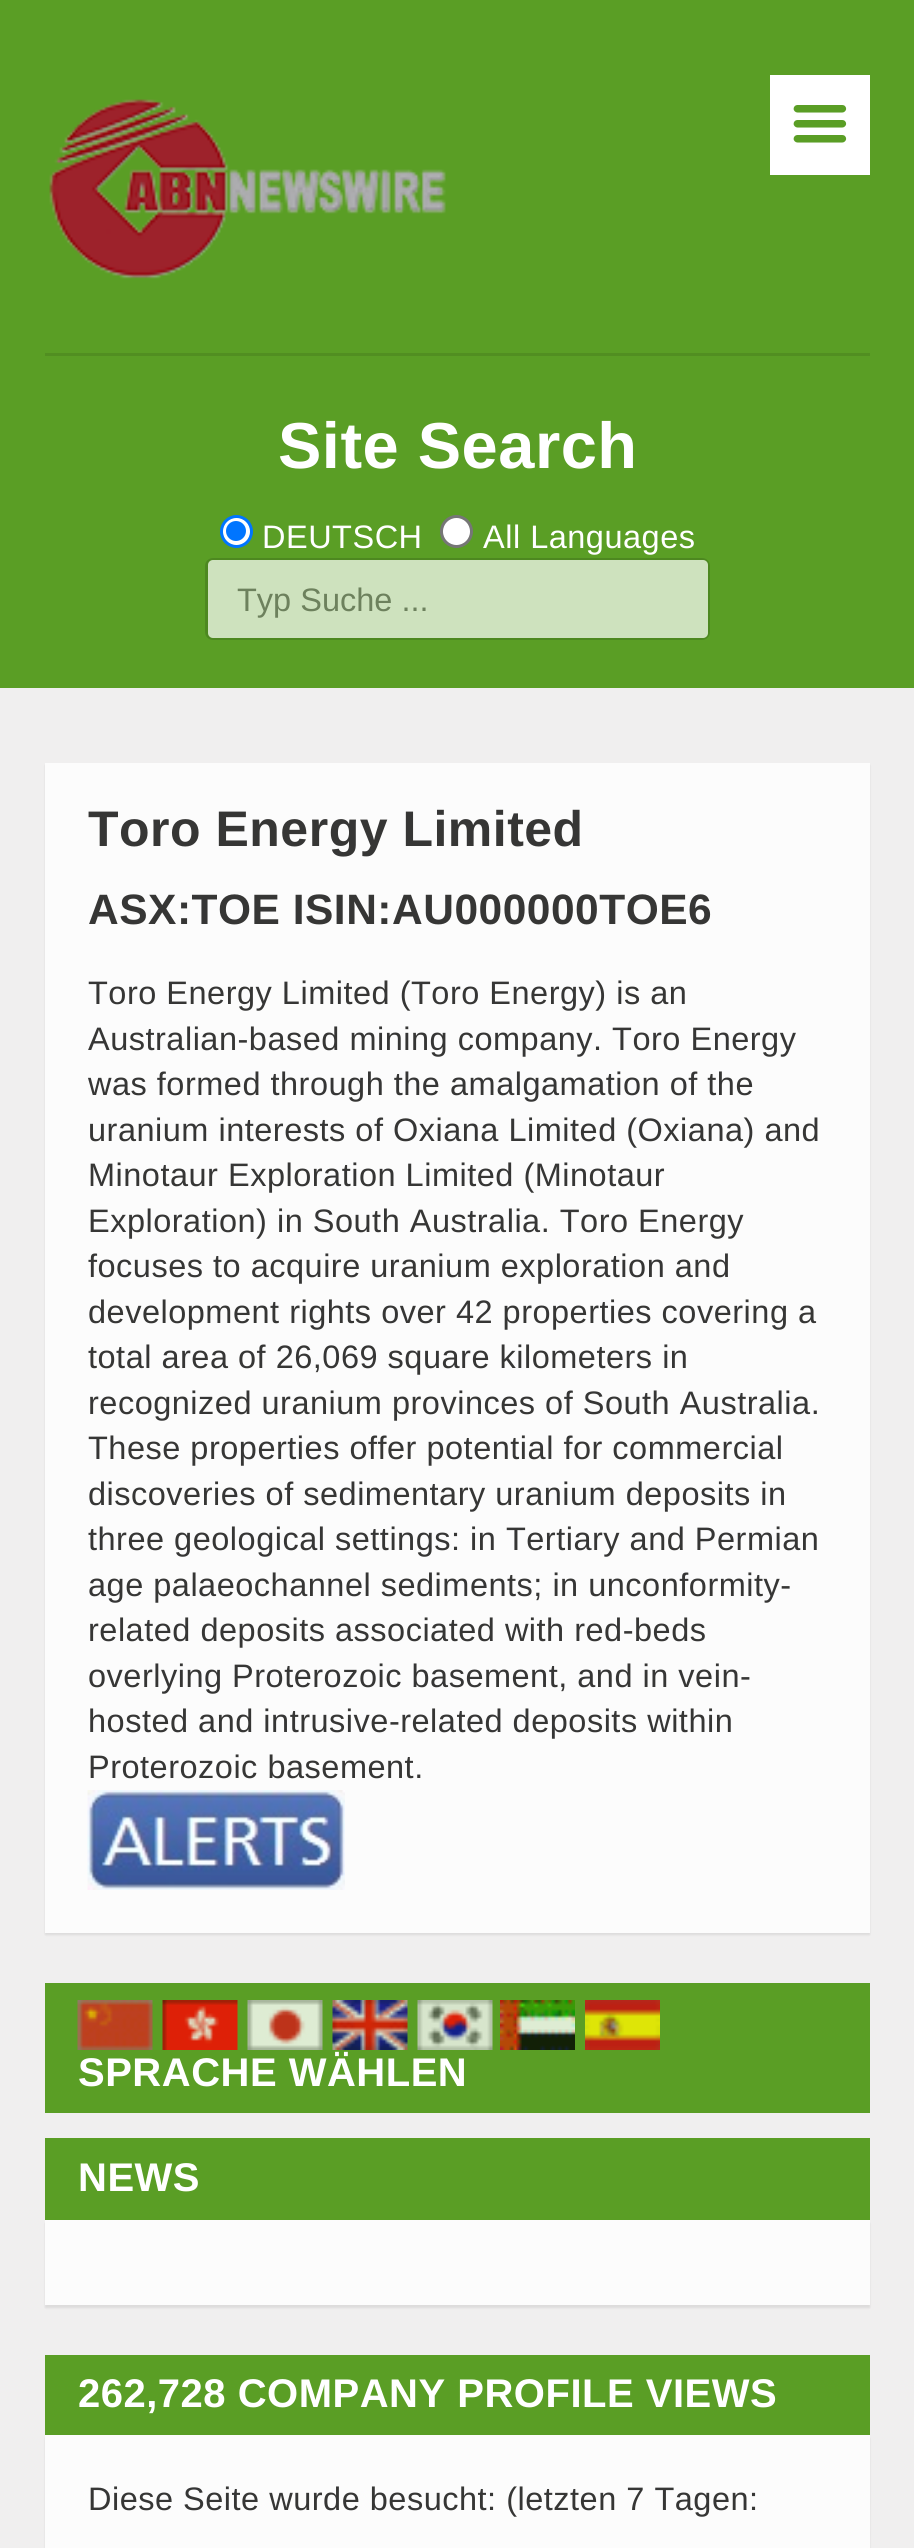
import math
import cairo

surface = cairo.ImageSurface(cairo.Format.RGB24, 914, 2548)
ctx = cairo.Context(surface)
options = cairo.FontOptions()
options.set_hint_metrics(cairo.HintMetrics.OFF)
options.set_hint_style(cairo.HintStyle.NONE)
ctx.set_font_options(options)
ctx.set_miter_limit(4)


def ink(r, g, b):
    ctx.set_source_rgb(r / 255, g / 255, b / 255)


def write(x, y, s, family, size, color, bold=False, italic=False):
    ctx.select_font_face(family, cairo.FontSlant.ITALIC if italic else cairo.FontSlant.NORMAL, cairo.FontWeight.BOLD if bold else cairo.FontWeight.NORMAL)
    ctx.set_font_size(size)
    ink(*color)
    ctx.move_to(x, y)
    ctx.show_text(s)


def write_spaced(x, y, s, letter, word):
    ctx.move_to(x, y)
    for ch in s:
        ctx.show_text(ch)
        ctx.rel_move_to(letter + word * (ch == ' '), 0)


def block(x, y, w, h, *color):
    ink(*color)
    ctx.rectangle(x, y, w, h)
    ctx.fill()


def round_path(x, y, w, h, r):
    ctx.new_sub_path()
    for i, (u, v) in enumerate([(x + w - r, y + h - r), (x + r, y + h - r), (x + r, y + r), (x + w - r, y + r)]):
        ctx.arc(u, v, r, i * math.pi / 2, (i + 1) * math.pi / 2)
    ctx.close_path()


def blur_box(x, y, w, h, r, blur, alpha):
    ctx.push_group_with_content(cairo.Content.ALPHA)
    ctx.set_operator(cairo.Operator.SOURCE)
    for i in range(15, -16, -2):
        e = blur * i / 6
        if min(w, h) + 2 * e > 0:
            ctx.set_source_rgba(0, 0, 0, alpha * math.erfc((i - 1) / 8.5) / 2)
            round_path(x - e, y - e, w + 2 * e, h + 2 * e, max(0, min(r + e + blur * .6, min(w, h) / 2 + e)))
            ctx.fill()
    ctx.mask(ctx.pop_group())


def paste(path, x, y, w, h):
    ctx.save()
    ctx.set_source_surface(cairo.ImageSurface.create_from_png(path), x, y)
    ctx.rectangle(x, y, w, h)
    ctx.fill()
    ctx.restore()


s1 = dict(family="Liberation Sans", size=32.5, color=(109, 129, 93))

ink(240, 239, 239)
ctx.paint()
block(0, 0, 914, 688, 90, 158, 37)
paste("pic1.png", 49, 99, 397, 180)
block(770, 75, 100, 100, 255, 255, 255)
paste("pic2.png", 793, 105, 54, 38)
block(45, 353, 825, 3, 81, 142, 33)
ctx.select_font_face("Liberation Sans", cairo.FontSlant.NORMAL, cairo.FontWeight.BOLD)
ctx.set_font_size(65)
ink(255, 255, 255)
write_spaced(278, 468, "Site Search", 0.5, 0)
ctx.new_path()
ctx.arc(236.5, 531.5, 15, 0, 2 * math.pi)
ctx.fill_preserve()
ink(0, 117, 255)
ctx.set_line_width(3)
ctx.stroke()
ctx.arc(236, 531, 10, 0, 2 * math.pi)
ctx.fill()
ctx.select_font_face("Liberation Sans")
ctx.set_font_size(32.5)
ink(255, 255, 255)
write_spaced(262, 548, "DEUTSCH", 0.5, 0)
ctx.new_path()
ctx.arc(456.5, 531.5, 15, 0, 2 * math.pi)
ctx.fill_preserve()
ink(118, 118, 118)
ctx.stroke()
ink(255, 255, 255)
write_spaced(483, 548, "All Languages", 0.5, 0)
round_path(206.5, 559.5, 502, 79, 6.5)
ink(77, 136, 32)
ctx.stroke()
ink(206, 226, 190)
round_path(208, 560, 500, 78, 5)
ctx.fill()
write(237, 611, "Typ Suche ...", **s1)
ink(0, 0, 0)
blur_box(45, 765, 825, 1170, 0, 1, 0.08)
block(45, 763, 825, 1170, 252, 252, 252)
ctx.select_font_face("Liberation Sans", cairo.FontSlant.NORMAL, cairo.FontWeight.BOLD)
ctx.set_font_size(50)
ink(54, 54, 53)
write_spaced(88, 846, "Toro Energy Limited", 0.5, 0)
ctx.set_font_size(42.5)
write_spaced(88, 924, "ASX:TOE ISIN:AU000000TOE6", 0.5, 0)
ctx.select_font_face("Liberation Sans")
ctx.set_font_size(32.5)
write_spaced(88, 1004, "Toro Energy Limited (Toro Energy) is an", 0.5, 0)
write_spaced(88, 1050, "Australian-based mining company. Toro Energy", 0.5, 0)
write_spaced(88, 1095, "was formed through the amalgamation of the", 0.5, 0)
write_spaced(88, 1141, "uranium interests of Oxiana Limited (Oxiana) and", 0.5, 0)
write_spaced(88, 1186, "Minotaur Exploration Limited (Minotaur", 0.5, 0)
write_spaced(88, 1232, "Exploration) in South Australia. Toro Energy", 0.5, 0)
write_spaced(88, 1277, "focuses to acquire uranium exploration and", 0.5, 0)
write_spaced(88, 1323, "development rights over 42 properties covering a", 0.5, 0)
write_spaced(88, 1368, "total area of 26,069 square kilometers in", 0.5, 0)
write_spaced(88, 1414, "recognized uranium provinces of South Australia.", 0.5, 0)
write_spaced(88, 1459, "These properties offer potential for commercial", 0.5, 0)
write_spaced(88, 1505, "discoveries of sedimentary uranium deposits in", 0.5, 0)
write_spaced(88, 1550, "three geological settings: in Tertiary and Permian", 0.5, 0)
write_spaced(88, 1596, "age palaeochannel sediments; in unconformity-", 0.5, 0)
write_spaced(88, 1641, "related deposits associated with red-beds", 0.5, 0)
write_spaced(88, 1687, "overlying Proterozoic basement, and in vein-", 0.5, 0)
write_spaced(88, 1732, "hosted and intrusive-related deposits within", 0.5, 0)
write_spaced(88, 1778, "Proterozoic basement.", 0.5, 0)
paste("pic3.png", 87, 1790, 258, 100)
block(45, 1983, 825, 130, 90, 158, 37)
paste("pic4.png", 77, 2000, 76, 50)
paste("pic5.png", 162, 2000, 76, 50)
paste("pic6.png", 247, 2000, 76, 50)
paste("pic7.png", 332, 2000, 76, 50)
paste("pic8.png", 417, 2000, 76, 50)
paste("pic9.png", 500, 2000, 75, 50)
paste("pic10.png", 585, 2000, 75, 50)
ctx.select_font_face("Liberation Sans", cairo.FontSlant.NORMAL, cairo.FontWeight.BOLD)
ctx.set_font_size(40)
ink(255, 255, 255)
write_spaced(78, 2086, "SPRACHE WÄHLEN", 0.5, 0)
block(45, 2138, 825, 82, 90, 158, 37)
ink(255, 255, 255)
write_spaced(78, 2191, "NEWS", 0.5, 0)
ink(0, 0, 0)
blur_box(45, 2223, 825, 85, 0, 1, 0.08)
block(45, 2220, 825, 85, 252, 252, 252)
block(45, 2355, 825, 80, 90, 158, 37)
ink(255, 255, 255)
write_spaced(78, 2407, "262,728 COMPANY PROFILE VIEWS", 0.5, 0)
ink(0, 0, 0)
blur_box(45, 2438, 825, 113, 0, 1, 0.08)
block(45, 2435, 825, 113, 252, 252, 252)
ctx.select_font_face("Liberation Sans")
ctx.set_font_size(32.5)
ink(54, 54, 53)
write_spaced(88, 2510, "Diese Seite wurde besucht: (letzten 7 Tagen:", 0.5, 0)
surface.write_to_png("screenshot.png")
